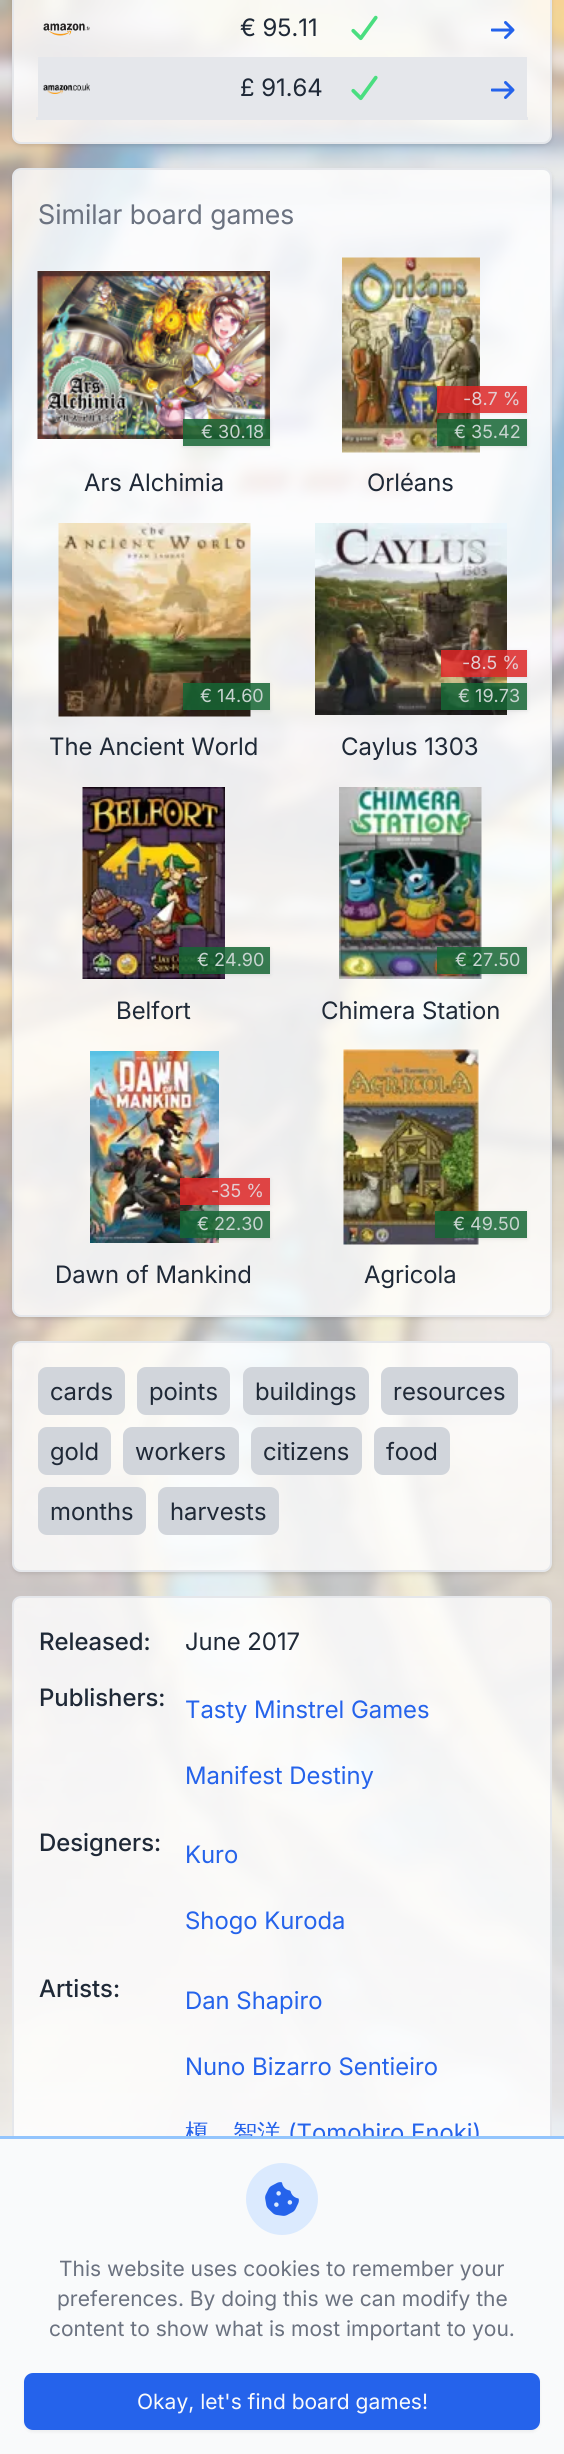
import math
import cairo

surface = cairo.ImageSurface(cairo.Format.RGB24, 564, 2454)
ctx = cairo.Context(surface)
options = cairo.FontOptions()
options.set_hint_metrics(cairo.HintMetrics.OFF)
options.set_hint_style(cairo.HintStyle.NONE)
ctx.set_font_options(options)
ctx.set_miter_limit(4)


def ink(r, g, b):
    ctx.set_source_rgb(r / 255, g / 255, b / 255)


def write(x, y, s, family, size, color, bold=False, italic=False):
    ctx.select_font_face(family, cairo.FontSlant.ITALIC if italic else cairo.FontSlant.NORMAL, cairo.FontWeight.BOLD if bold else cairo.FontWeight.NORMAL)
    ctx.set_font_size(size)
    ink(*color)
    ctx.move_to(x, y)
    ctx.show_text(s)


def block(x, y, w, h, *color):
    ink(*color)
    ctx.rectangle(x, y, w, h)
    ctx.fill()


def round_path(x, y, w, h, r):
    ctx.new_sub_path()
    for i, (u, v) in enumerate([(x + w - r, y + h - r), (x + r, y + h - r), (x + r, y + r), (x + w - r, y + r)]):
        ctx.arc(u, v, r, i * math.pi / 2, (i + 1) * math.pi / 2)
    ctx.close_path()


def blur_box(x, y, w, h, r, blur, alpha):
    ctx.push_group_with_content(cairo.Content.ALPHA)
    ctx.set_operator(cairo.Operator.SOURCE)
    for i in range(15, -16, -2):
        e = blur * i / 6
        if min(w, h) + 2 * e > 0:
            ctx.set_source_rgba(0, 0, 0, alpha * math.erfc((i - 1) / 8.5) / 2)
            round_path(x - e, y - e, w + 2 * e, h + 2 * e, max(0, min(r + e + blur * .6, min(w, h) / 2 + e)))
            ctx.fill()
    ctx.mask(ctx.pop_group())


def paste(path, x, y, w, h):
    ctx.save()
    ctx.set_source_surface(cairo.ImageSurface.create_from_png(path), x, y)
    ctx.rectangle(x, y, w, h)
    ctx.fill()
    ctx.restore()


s1 = dict(family="Inter", size=24, color=(31, 41, 55))
s2 = dict(family="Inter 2", size=27, color=(107, 114, 128))
s3 = dict(family="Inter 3", size=18, color=(200, 212, 208))
s4 = dict(family="Inter 3", size=18, color=(227, 205, 209))
s5 = dict(family="Inter Medium", size=24, color=(31, 41, 55))
s6 = dict(family="Inter", size=24, color=(37, 99, 235))
s7 = dict(family="WenQuanYi Zen Hei Medium", size=24, color=(37, 99, 235))
s8 = dict(family="Inter 3", size=21, color=(107, 114, 128))
s9 = dict(family="Inter 3", size=21, color=(249, 250, 251))

ink(243, 244, 246)
ctx.paint()
paste("pic1.png", 0, 0, 564, 2136)
ctx.save()
ctx.set_fill_rule(cairo.FillRule.EVEN_ODD)
ctx.new_path()
ctx.move_to(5, 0)
ctx.line_to(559, 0)
ctx.line_to(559, 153)
ctx.line_to(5, 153)
ctx.close_path()
ctx.move_to(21, -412)
ctx.line_to(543, -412)
ctx.curve_to(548, -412, 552, -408, 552, -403)
ctx.line_to(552, 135)
ctx.curve_to(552, 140, 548, 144, 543, 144)
ctx.line_to(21, 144)
ctx.curve_to(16, 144, 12, 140, 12, 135)
ctx.line_to(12, -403)
ctx.curve_to(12, -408, 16, -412, 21, -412)
ctx.close_path()
ctx.clip()
ink(0, 0, 0)
blur_box(12, -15, 540, 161, 9, 2, 0.1)
ctx.restore()
ctx.set_source_rgba(1, 1, 1, 0.8)
round_path(13, -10, 538, 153, 8)
ctx.fill_preserve()
ink(229, 231, 235)
ctx.stroke()
paste("pic2.png", 43, 23, 47, 13)
write(240, 36, "€ 95.11", **s1)
paste("pic3.png", 351, 15, 27, 26)
paste("pic4.png", 491, 21, 24, 18)
block(38, 57, 489, 60, 229, 231, 235)
paste("pic5.png", 43, 83, 47, 11)
write(240, 96, "£ 91.64", **s1)
paste("pic6.png", 351, 75, 27, 26)
paste("pic7.png", 491, 81, 24, 18)
block(36, 117, 492, 3, 229, 231, 235)
ctx.save()
ctx.set_fill_rule(cairo.FillRule.EVEN_ODD)
ctx.new_path()
ctx.move_to(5, 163)
ctx.line_to(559, 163)
ctx.line_to(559, 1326)
ctx.line_to(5, 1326)
ctx.close_path()
ctx.move_to(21, 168)
ctx.line_to(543, 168)
ctx.curve_to(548, 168, 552, 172, 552, 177)
ctx.line_to(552, 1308)
ctx.curve_to(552, 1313, 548, 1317, 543, 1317)
ctx.line_to(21, 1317)
ctx.curve_to(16, 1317, 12, 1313, 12, 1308)
ctx.line_to(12, 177)
ctx.curve_to(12, 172, 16, 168, 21, 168)
ctx.close_path()
ctx.clip()
ink(0, 0, 0)
blur_box(12, 170, 540, 1149, 9, 2, 0.1)
ctx.restore()
ctx.set_source_rgba(1, 1, 1, 0.8)
round_path(13, 169, 538, 1147, 8)
ctx.fill_preserve()
ink(229, 231, 235)
ctx.stroke()
write(38, 224, "Similar board games", **s2)
paste("pic8.png", 37, 271, 233, 168)
ctx.save()
ctx.set_fill_rule(cairo.FillRule.EVEN_ODD)
ctx.new_path()
ctx.move_to(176, 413)
ctx.line_to(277, 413)
ctx.line_to(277, 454)
ctx.line_to(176, 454)
ctx.close_path()
ctx.move_to(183, 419)
ctx.line_to(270, 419)
ctx.line_to(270, 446)
ctx.line_to(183, 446)
ctx.close_path()
ctx.clip()
ink(0, 0, 0)
blur_box(183, 420, 87, 27, 0, 2, 0.09)
ctx.restore()
ctx.set_source_rgba(0.086, 0.396, 0.204, 0.85)
ctx.rectangle(183, 419, 87, 27)
ctx.fill()
write(201, 438, "€ 30.18", **s3)
write(84, 491, "Ars Alchimia", **s1)
paste("pic9.png", 342, 257, 138, 196)
ctx.save()
ctx.set_fill_rule(cairo.FillRule.EVEN_ODD)
ctx.new_path()
ctx.move_to(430, 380)
ctx.line_to(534, 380)
ctx.line_to(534, 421)
ctx.line_to(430, 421)
ctx.close_path()
ctx.move_to(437, 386)
ctx.line_to(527, 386)
ctx.line_to(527, 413)
ctx.line_to(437, 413)
ctx.close_path()
ctx.clip()
ink(0, 0, 0)
blur_box(437, 387, 90, 27, 0, 2, 0.09)
ctx.restore()
ctx.set_source_rgba(0.863, 0.149, 0.149, 0.85)
ctx.rectangle(437, 386, 90, 27)
ctx.fill()
write(463, 405, "-8.7 %", **s4)
ctx.save()
ctx.set_fill_rule(cairo.FillRule.EVEN_ODD)
ctx.new_path()
ctx.move_to(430, 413)
ctx.line_to(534, 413)
ctx.line_to(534, 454)
ctx.line_to(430, 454)
ctx.close_path()
ctx.move_to(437, 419)
ctx.line_to(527, 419)
ctx.line_to(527, 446)
ctx.line_to(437, 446)
ctx.close_path()
ctx.clip()
ink(0, 0, 0)
blur_box(437, 420, 90, 27, 0, 2, 0.09)
ctx.restore()
ctx.set_source_rgba(0.086, 0.396, 0.204, 0.85)
ctx.rectangle(437, 419, 90, 27)
ctx.fill()
write(454, 438, "€ 35.42", **s3)
write(367, 491, "Orléans", **s1)
paste("pic10.png", 58, 523, 193, 194)
ctx.save()
ctx.set_fill_rule(cairo.FillRule.EVEN_ODD)
ctx.new_path()
ctx.move_to(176, 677)
ctx.line_to(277, 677)
ctx.line_to(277, 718)
ctx.line_to(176, 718)
ctx.close_path()
ctx.move_to(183, 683)
ctx.line_to(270, 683)
ctx.line_to(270, 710)
ctx.line_to(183, 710)
ctx.close_path()
ctx.clip()
ink(0, 0, 0)
blur_box(183, 684, 87, 27, 0, 2, 0.09)
ctx.restore()
ctx.set_source_rgba(0.086, 0.396, 0.204, 0.85)
ctx.rectangle(183, 683, 87, 27)
ctx.fill()
write(200, 702, "€ 14.60", **s3)
write(49, 755, "The Ancient World", **s1)
paste("pic11.png", 315, 523, 192, 192)
ctx.save()
ctx.set_fill_rule(cairo.FillRule.EVEN_ODD)
ctx.new_path()
ctx.move_to(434, 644)
ctx.line_to(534, 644)
ctx.line_to(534, 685)
ctx.line_to(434, 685)
ctx.close_path()
ctx.move_to(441, 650)
ctx.line_to(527, 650)
ctx.line_to(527, 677)
ctx.line_to(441, 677)
ctx.close_path()
ctx.clip()
ink(0, 0, 0)
blur_box(441, 651, 86, 27, 0, 2, 0.09)
ctx.restore()
ctx.set_source_rgba(0.863, 0.149, 0.149, 0.85)
ctx.rectangle(441, 650, 86, 27)
ctx.fill()
write(462, 669, "-8.5 %", **s4)
ctx.save()
ctx.set_fill_rule(cairo.FillRule.EVEN_ODD)
ctx.new_path()
ctx.move_to(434, 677)
ctx.line_to(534, 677)
ctx.line_to(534, 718)
ctx.line_to(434, 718)
ctx.close_path()
ctx.move_to(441, 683)
ctx.line_to(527, 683)
ctx.line_to(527, 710)
ctx.line_to(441, 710)
ctx.close_path()
ctx.clip()
ink(0, 0, 0)
blur_box(441, 684, 86, 27, 0, 2, 0.09)
ctx.restore()
ctx.set_source_rgba(0.086, 0.396, 0.204, 0.85)
ctx.rectangle(441, 683, 86, 27)
ctx.fill()
write(458, 702, "€ 19.73", **s3)
write(341, 755, "Caylus 1303", **s1)
paste("pic12.png", 82, 787, 143, 192)
ctx.save()
ctx.set_fill_rule(cairo.FillRule.EVEN_ODD)
ctx.new_path()
ctx.move_to(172, 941)
ctx.line_to(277, 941)
ctx.line_to(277, 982)
ctx.line_to(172, 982)
ctx.close_path()
ctx.move_to(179, 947)
ctx.line_to(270, 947)
ctx.line_to(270, 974)
ctx.line_to(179, 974)
ctx.close_path()
ctx.clip()
ink(0, 0, 0)
blur_box(179, 948, 91, 27, 0, 2, 0.09)
ctx.restore()
ctx.set_source_rgba(0.086, 0.396, 0.204, 0.85)
ctx.rectangle(179, 947, 91, 27)
ctx.fill()
write(197, 966, "€ 24.90", **s3)
write(116, 1019, "Belfort", **s1)
paste("pic13.png", 339, 787, 143, 192)
ctx.save()
ctx.set_fill_rule(cairo.FillRule.EVEN_ODD)
ctx.new_path()
ctx.move_to(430, 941)
ctx.line_to(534, 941)
ctx.line_to(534, 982)
ctx.line_to(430, 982)
ctx.close_path()
ctx.move_to(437, 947)
ctx.line_to(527, 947)
ctx.line_to(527, 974)
ctx.line_to(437, 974)
ctx.close_path()
ctx.clip()
ink(0, 0, 0)
blur_box(437, 948, 90, 27, 0, 2, 0.09)
ctx.restore()
ctx.set_source_rgba(0.086, 0.396, 0.204, 0.85)
ctx.rectangle(437, 947, 90, 27)
ctx.fill()
write(455, 966, "€ 27.50", **s3)
write(321, 1019, "Chimera Station", **s1)
paste("pic14.png", 90, 1051, 129, 192)
ctx.save()
ctx.set_fill_rule(cairo.FillRule.EVEN_ODD)
ctx.new_path()
ctx.move_to(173, 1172)
ctx.line_to(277, 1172)
ctx.line_to(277, 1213)
ctx.line_to(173, 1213)
ctx.close_path()
ctx.move_to(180, 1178)
ctx.line_to(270, 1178)
ctx.line_to(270, 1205)
ctx.line_to(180, 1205)
ctx.close_path()
ctx.clip()
ink(0, 0, 0)
blur_box(180, 1179, 90, 27, 0, 2, 0.09)
ctx.restore()
ctx.set_source_rgba(0.863, 0.149, 0.149, 0.85)
ctx.rectangle(180, 1178, 90, 27)
ctx.fill()
write(211, 1197, "-35 %", **s4)
ctx.save()
ctx.set_fill_rule(cairo.FillRule.EVEN_ODD)
ctx.new_path()
ctx.move_to(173, 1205)
ctx.line_to(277, 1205)
ctx.line_to(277, 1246)
ctx.line_to(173, 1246)
ctx.close_path()
ctx.move_to(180, 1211)
ctx.line_to(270, 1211)
ctx.line_to(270, 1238)
ctx.line_to(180, 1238)
ctx.close_path()
ctx.clip()
ink(0, 0, 0)
blur_box(180, 1212, 90, 27, 0, 2, 0.09)
ctx.restore()
ctx.set_source_rgba(0.086, 0.396, 0.204, 0.85)
ctx.rectangle(180, 1211, 90, 27)
ctx.fill()
write(197, 1230, "€ 22.30", **s3)
write(55, 1283, "Dawn of Mankind", **s1)
paste("pic15.png", 343, 1049, 136, 196)
ctx.save()
ctx.set_fill_rule(cairo.FillRule.EVEN_ODD)
ctx.new_path()
ctx.move_to(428, 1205)
ctx.line_to(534, 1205)
ctx.line_to(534, 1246)
ctx.line_to(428, 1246)
ctx.close_path()
ctx.move_to(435, 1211)
ctx.line_to(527, 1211)
ctx.line_to(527, 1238)
ctx.line_to(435, 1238)
ctx.close_path()
ctx.clip()
ink(0, 0, 0)
blur_box(435, 1212, 92, 27, 0, 2, 0.09)
ctx.restore()
ctx.set_source_rgba(0.086, 0.396, 0.204, 0.85)
ctx.rectangle(435, 1211, 92, 27)
ctx.fill()
write(453, 1230, "€ 49.50", **s3)
write(364, 1283, "Agricola", **s1)
ctx.save()
ctx.set_fill_rule(cairo.FillRule.EVEN_ODD)
ctx.new_path()
ctx.move_to(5, 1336)
ctx.line_to(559, 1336)
ctx.line_to(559, 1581)
ctx.line_to(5, 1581)
ctx.close_path()
ctx.move_to(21, 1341)
ctx.line_to(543, 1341)
ctx.curve_to(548, 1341, 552, 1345, 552, 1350)
ctx.line_to(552, 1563)
ctx.curve_to(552, 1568, 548, 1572, 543, 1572)
ctx.line_to(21, 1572)
ctx.curve_to(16, 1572, 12, 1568, 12, 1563)
ctx.line_to(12, 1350)
ctx.curve_to(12, 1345, 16, 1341, 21, 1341)
ctx.close_path()
ctx.clip()
ink(0, 0, 0)
blur_box(12, 1343, 540, 231, 9, 2, 0.1)
ctx.restore()
ctx.set_source_rgba(1, 1, 1, 0.8)
round_path(13, 1342, 538, 229, 8)
ctx.fill_preserve()
ink(229, 231, 235)
ctx.stroke()
ink(209, 213, 219)
round_path(38, 1367, 87, 48, 9)
ctx.fill()
write(50, 1400, "cards", **s1)
ink(209, 213, 219)
round_path(137, 1367, 93, 48, 9)
ctx.fill()
write(149, 1400, "points", **s1)
ink(209, 213, 219)
round_path(243, 1367, 126, 48, 9)
ctx.fill()
write(255, 1400, "buildings", **s1)
ink(209, 213, 219)
round_path(381, 1367, 137, 48, 9)
ctx.fill()
write(393, 1400, "resources", **s1)
ink(209, 213, 219)
round_path(38, 1427, 73, 48, 9)
ctx.fill()
write(50, 1460, "gold", **s1)
ink(209, 213, 219)
round_path(123, 1427, 116, 48, 9)
ctx.fill()
write(135, 1460, "workers", **s1)
ink(209, 213, 219)
round_path(251, 1427, 111, 48, 9)
ctx.fill()
write(263, 1460, "citizens", **s1)
ink(209, 213, 219)
round_path(374, 1427, 76, 48, 9)
ctx.fill()
write(386, 1460, "food", **s1)
ink(209, 213, 219)
round_path(38, 1487, 108, 48, 9)
ctx.fill()
write(50, 1520, "months", **s1)
ink(209, 213, 219)
round_path(158, 1487, 121, 48, 9)
ctx.fill()
write(170, 1520, "harvests", **s1)
ctx.set_source_rgba(1, 1, 1, 0.8)
round_path(13, 1597, 538, 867, 8)
ctx.fill_preserve()
ink(229, 231, 235)
ctx.stroke()
write(39, 1650, "Released:", **s5)
write(185, 1650, "June 2017", **s1)
write(39, 1706, "Publishers:", **s5)
write(185, 1718, "Tasty Minstrel Games", **s6)
write(185, 1784, "Manifest Destiny", **s6)
write(39, 1851, "Designers:", **s5)
write(185, 1863, "Kuro", **s6)
write(185, 1929, "Shogo Kuroda", **s6)
write(39, 1997, "Artists:", **s5)
write(185, 2009, "Dan Shapiro", **s6)
write(185, 2075, "Nuno Bizarro Sentieiro", **s6)
write(185, 2141, "榎　智洋", **s7)
write(288, 2141, "(Tomohiro Enoki)", **s6)
ctx.rectangle(-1.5, 2137.5, 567, 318)
ink(147, 197, 253)
ctx.set_line_width(3)
ctx.stroke()
block(0, 2139, 564, 315, 249, 250, 251)
ink(219, 234, 254)
ctx.arc(282, 2199, 36, 0, 2 * math.pi)
ctx.fill()
paste("pic16.png", 265, 2182, 34, 34)
write(59, 2276, "This website uses cookies to remember your", **s8)
write(57, 2306, "preferences. By doing this we can modify the", **s8)
write(49, 2336, "content to show what is most important to you.", **s8)
ink(0, 0, 0)
blur_box(24, 2375, 516, 57, 9, 1.5, 0.05)
ink(37, 99, 235)
round_path(25, 2374, 514, 55, 8)
ctx.fill_preserve()
ctx.set_line_width(2)
ctx.stroke()
write(137, 2409, "Okay, let's find board games!", **s9)
surface.write_to_png("screenshot.png")
